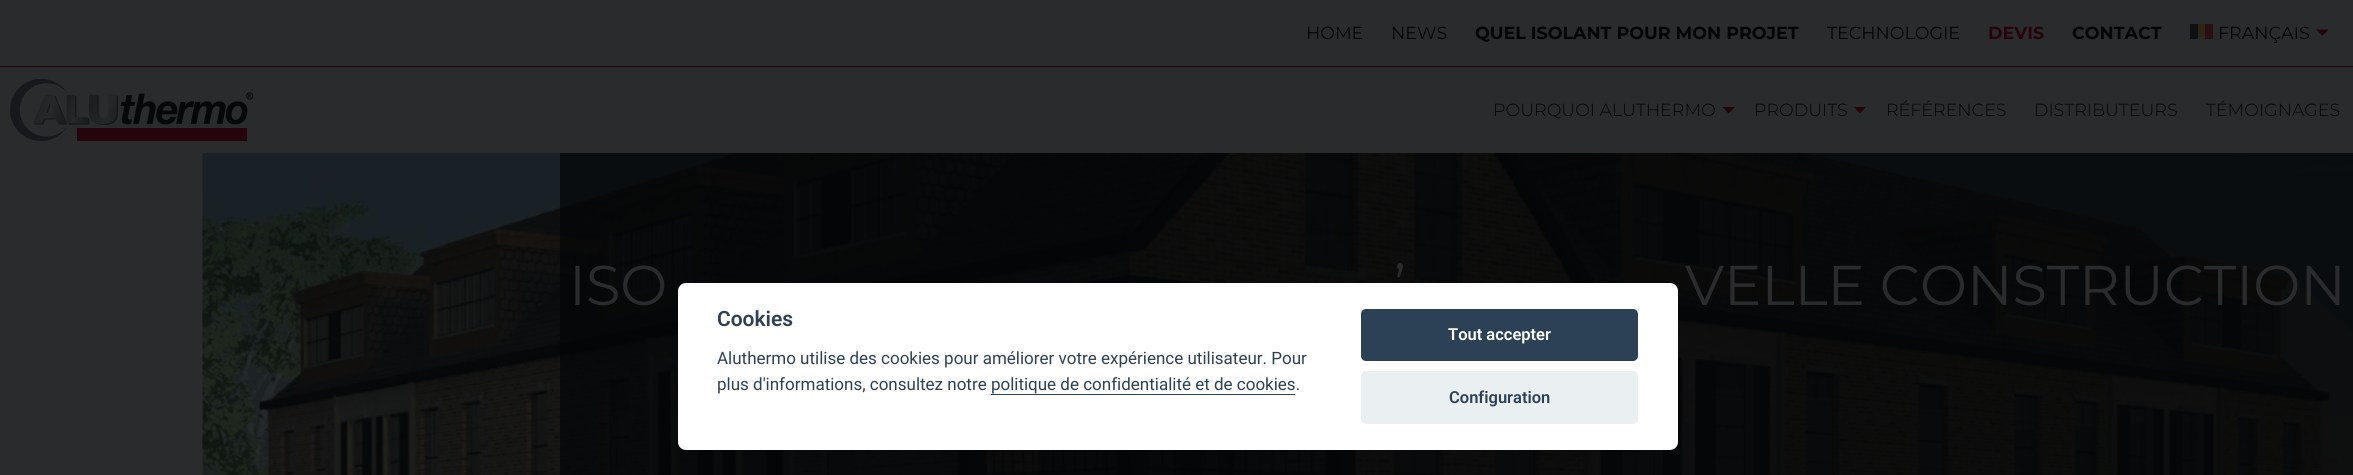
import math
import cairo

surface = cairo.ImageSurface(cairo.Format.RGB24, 2353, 475)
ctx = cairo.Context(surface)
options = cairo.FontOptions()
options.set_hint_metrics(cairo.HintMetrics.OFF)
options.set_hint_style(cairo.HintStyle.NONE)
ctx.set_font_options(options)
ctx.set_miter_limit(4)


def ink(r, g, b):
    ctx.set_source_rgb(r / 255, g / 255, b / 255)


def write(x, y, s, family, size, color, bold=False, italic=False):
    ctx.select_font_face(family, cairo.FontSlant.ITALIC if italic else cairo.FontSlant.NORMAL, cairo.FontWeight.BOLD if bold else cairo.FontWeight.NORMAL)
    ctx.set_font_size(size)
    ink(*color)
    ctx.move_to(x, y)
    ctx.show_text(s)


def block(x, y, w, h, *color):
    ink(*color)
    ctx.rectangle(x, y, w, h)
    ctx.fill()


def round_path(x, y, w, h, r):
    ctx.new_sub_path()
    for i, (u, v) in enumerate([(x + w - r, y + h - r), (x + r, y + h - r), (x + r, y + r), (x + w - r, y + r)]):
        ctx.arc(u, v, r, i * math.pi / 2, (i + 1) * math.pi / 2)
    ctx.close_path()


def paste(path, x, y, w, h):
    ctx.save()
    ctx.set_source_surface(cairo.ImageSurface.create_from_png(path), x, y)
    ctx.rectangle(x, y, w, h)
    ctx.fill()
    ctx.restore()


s1 = dict(family="Montserrat", size=17.5, color=(3, 5, 7))
s2 = dict(family="Montserrat", size=17.5, color=(3, 5, 7), bold=True)
s3 = dict(family="Montserrat", size=17.5, color=(37, 5, 11), bold=True)
s4 = dict(family="Montserrat Light", size=17.5, color=(3, 5, 7))
s5 = dict(family="Montserrat", size=56, color=(42, 43, 45))
s6 = dict(family="Roboto SemiBold", size=21, color=(45, 65, 86))
s7 = dict(family="Roboto", size=17, color=(45, 65, 86))
s8 = dict(family="Roboto SemiBold", size=16.5, color=(255, 255, 255))
s9 = dict(family="Roboto SemiBold", size=16.5, color=(45, 65, 86))

ink(42, 43, 45)
ctx.paint()
write(1306, 39, "HOME", **s1)
write(1391, 39, "NEWS", **s1)
write(1475, 39, "QUEL ISOLANT POUR MON PROJET", **s2)
write(1827, 39, "TECHNOLOGIE", **s1)
write(1988, 39, "DEVIS", **s3)
write(2072, 39, "CONTACT", **s2)
block(2190, 24, 8, 15, 14, 16, 20)
block(2198, 24, 7, 15, 42, 39, 20)
block(2205, 24, 8, 15, 42, 16, 20)
write(2218, 39, "FRANÇAIS", **s1)
ink(37, 5, 11)
ctx.new_path()
ctx.move_to(2328.5, 29.5)
ctx.line_to(2322.5, 36)
ctx.line_to(2316, 29.5)
ctx.close_path()
ctx.fill()
block(0, 66, 2353, 1, 37, 5, 11)
paste("pic1.png", 10, 78, 244, 64)
write(1493, 116, "POURQUOI ALUTHERMO", **s4)
ink(37, 5, 11)
ctx.new_path()
ctx.move_to(1735, 107)
ctx.line_to(1728.5, 113.5)
ctx.line_to(1722.5, 107)
ctx.close_path()
ctx.fill()
write(1754, 116, "PRODUITS", **s4)
ink(37, 5, 11)
ctx.new_path()
ctx.move_to(1866, 107)
ctx.line_to(1860, 113.5)
ctx.line_to(1853.5, 107)
ctx.close_path()
ctx.fill()
write(1886, 116, "RÉFÉRENCES", **s4)
write(2034, 116, "DISTRIBUTEURS", **s4)
write(2206, 116, "TÉMOIGNAGES", **s4)
paste("pic2.png", 202, 153, 2151, 322)
ctx.set_source_rgba(0.012, 0.02, 0.027, 0.69)
ctx.rectangle(560, 153, 1793, 322)
ctx.fill()
write(569, 305, "ISO", **s5)
write(1394, 305, "’", **s5)
write(1685, 305, "VELLE CONSTRUCTION", **s5)
ink(255, 255, 255)
round_path(678, 283, 1000, 167, 8)
ctx.fill()
write(717, 326, "Cookies", **s6)
write(717, 364, "Aluthermo utilise des cookies pour améliorer votre expérience utilisateur. Pour", **s7)
write(717, 390, "plus d'informations, consultez notre politique de confidentialité et de cookies.", **s7)
block(991, 394, 304, 1, 45, 65, 86)
round_path(1361, 309, 277, 52, 5)
ctx.fill()
write(1448, 340, "Tout accepter", **s8)
ink(234, 239, 242)
round_path(1361, 371, 277, 53, 5)
ctx.fill()
write(1449, 403, "Configuration", **s9)
surface.write_to_png("screenshot.png")
